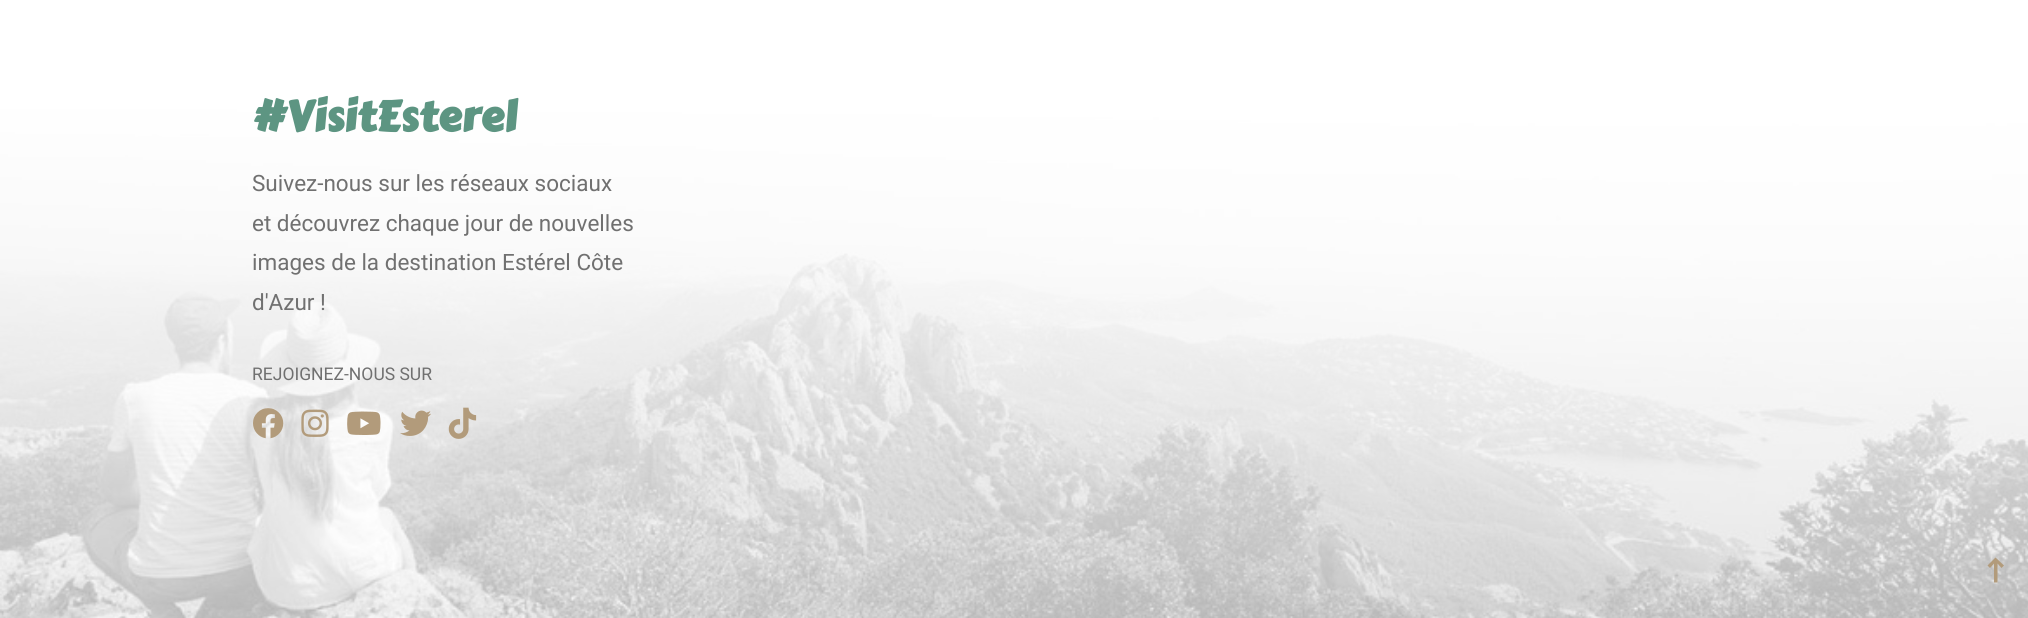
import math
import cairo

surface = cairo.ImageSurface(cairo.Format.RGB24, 2028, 618)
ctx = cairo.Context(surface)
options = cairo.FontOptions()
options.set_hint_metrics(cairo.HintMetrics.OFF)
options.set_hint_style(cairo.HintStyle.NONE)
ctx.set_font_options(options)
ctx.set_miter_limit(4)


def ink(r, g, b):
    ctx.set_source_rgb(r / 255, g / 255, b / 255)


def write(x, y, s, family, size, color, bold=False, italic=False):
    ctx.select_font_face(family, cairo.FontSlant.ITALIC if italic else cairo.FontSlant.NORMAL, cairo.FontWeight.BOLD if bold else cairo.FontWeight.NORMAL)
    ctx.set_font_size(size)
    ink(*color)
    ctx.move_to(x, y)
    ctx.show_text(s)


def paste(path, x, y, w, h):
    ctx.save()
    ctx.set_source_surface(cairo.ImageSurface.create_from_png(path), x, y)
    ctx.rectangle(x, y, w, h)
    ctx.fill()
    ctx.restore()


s1 = dict(family="Carter One", size=42.5, color=(93, 149, 130), bold=True)
s2 = dict(family="Roboto", size=22.5, color=(112, 112, 112))
s3 = dict(family="Roboto", size=17.5, color=(112, 112, 112))

ink(255, 255, 255)
ctx.paint()
paste("pic1.png", 0, 100, 2028, 518)
gradient = cairo.LinearGradient(1014, 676, 1014, 96)
gradient.add_color_stop_rgba(0, 1, 1, 1, 0.2)
gradient.add_color_stop_rgba(1, 1, 1, 1, 1)
ctx.set_source(gradient)
ctx.rectangle(0, 100, 2028, 518)
ctx.fill()
write(252, 131, "#VisitEsterel", **s1)
write(252, 191, "Suivez-nous sur les réseaux sociaux", **s2)
write(252, 231, "et découvrez chaque jour de nouvelles", **s2)
write(252, 270, "images de la destination Estérel Côte", **s2)
write(252, 310, "d'Azur !", **s2)
write(252, 380, "REJOIGNEZ-NOUS SUR", **s3)
paste("pic2.png", 253, 408, 31, 31)
paste("pic3.png", 301, 409, 28, 28)
paste("pic4.png", 347, 411, 34, 24)
paste("pic5.png", 400, 410, 31, 26)
paste("pic6.png", 448, 407, 29, 32)
ink(178, 155, 123)
ctx.new_path()
ctx.move_to(2004, 565.5)
ctx.line_to(2001.5, 568)
ctx.line_to(1997.5, 563.5)
ctx.line_to(1997.5, 582.5)
ctx.line_to(1994, 582.5)
ctx.line_to(1994, 563.5)
ctx.line_to(1990, 568)
ctx.line_to(1987.5, 565.5)
ctx.line_to(1995.5, 557.5)
ctx.close_path()
ctx.fill()
surface.write_to_png("screenshot.png")
